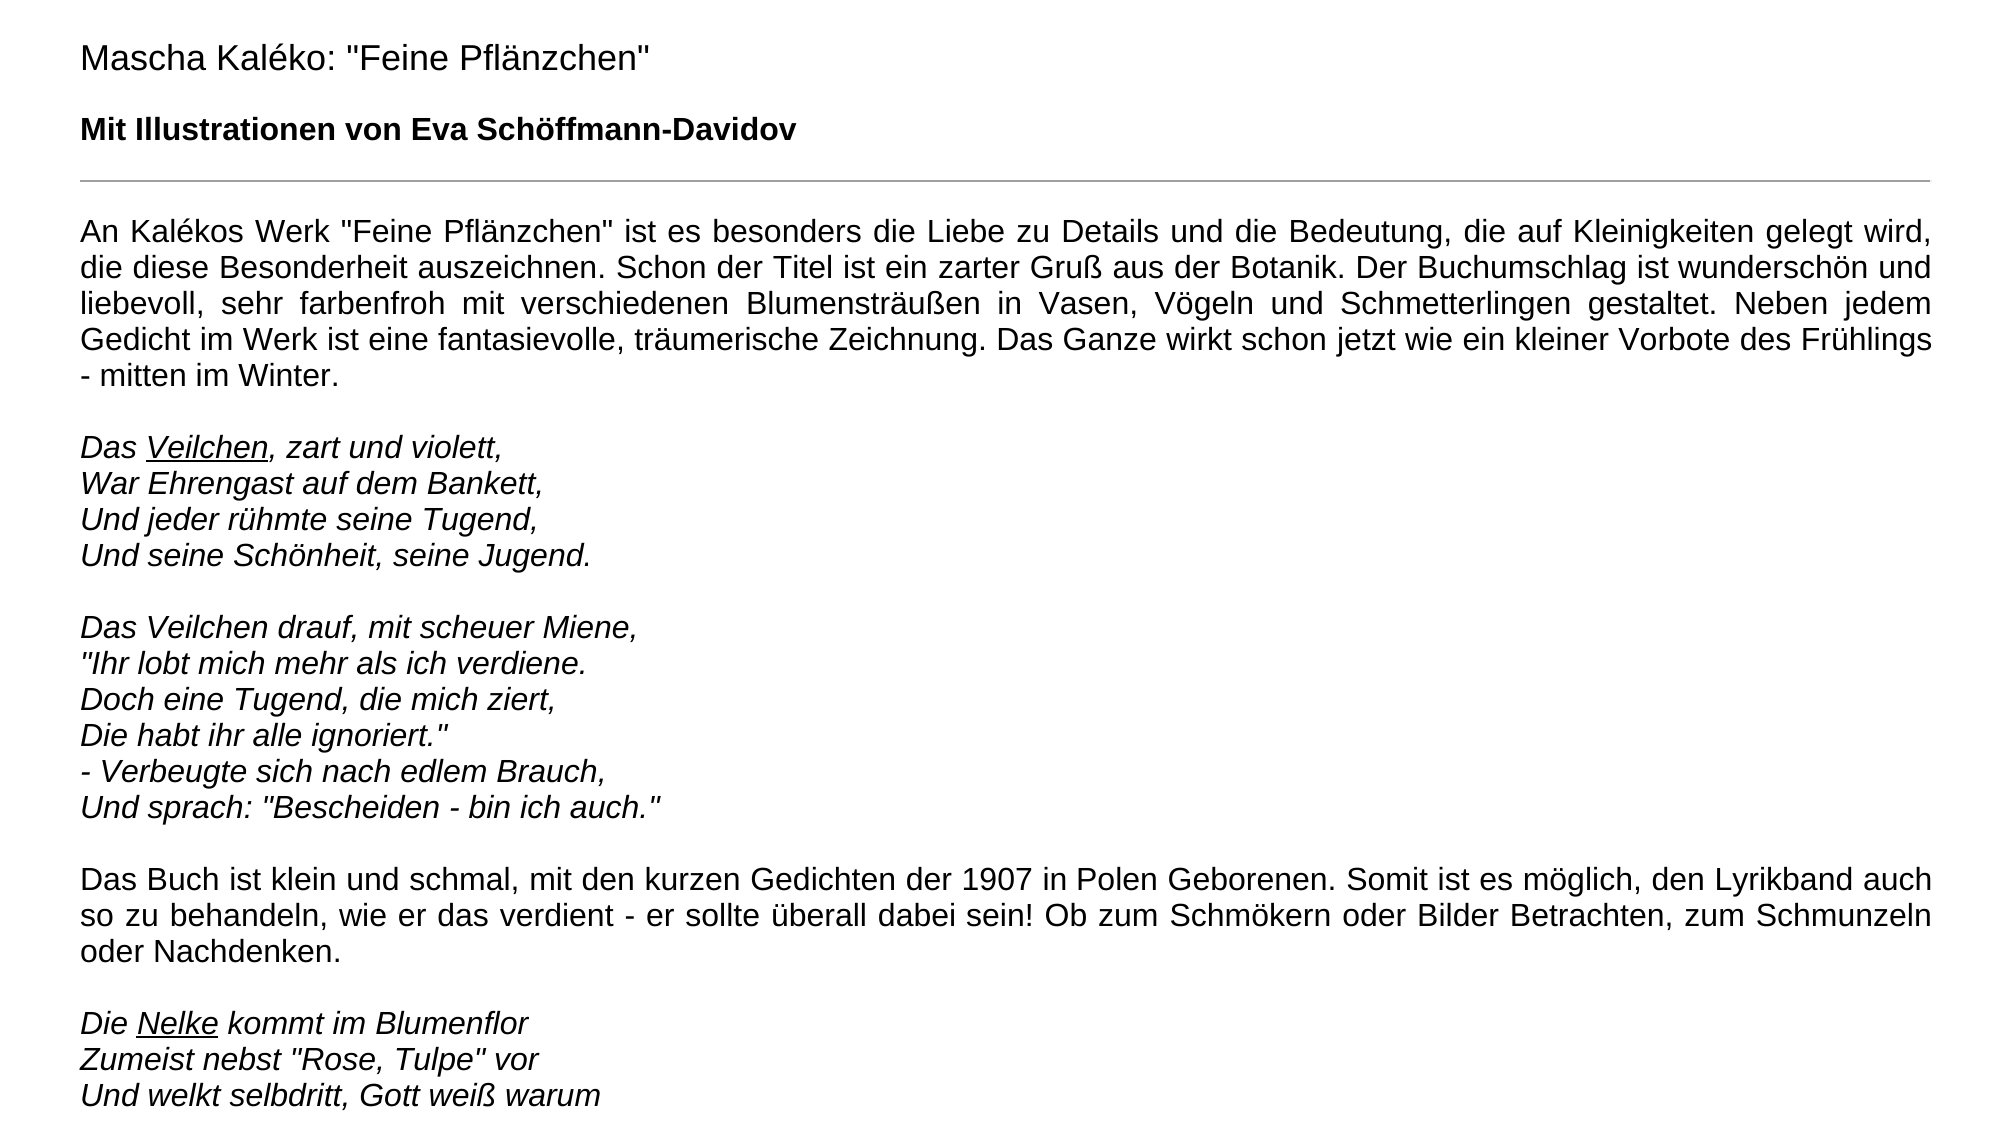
import math
import cairo

surface = cairo.ImageSurface(cairo.Format.RGB24, 2012, 1124)
ctx = cairo.Context(surface)
options = cairo.FontOptions()
options.set_hint_metrics(cairo.HintMetrics.OFF)
options.set_hint_style(cairo.HintStyle.NONE)
ctx.set_font_options(options)
ctx.set_miter_limit(4)


def ink(r, g, b):
    ctx.set_source_rgb(r / 255, g / 255, b / 255)


def write(x, y, s, family, size, color, bold=False, italic=False):
    ctx.select_font_face(family, cairo.FontSlant.ITALIC if italic else cairo.FontSlant.NORMAL, cairo.FontWeight.BOLD if bold else cairo.FontWeight.NORMAL)
    ctx.set_font_size(size)
    ink(*color)
    ctx.move_to(x, y)
    ctx.show_text(s)


def write_spaced(x, y, s, letter, word):
    ctx.move_to(x, y)
    for ch in s:
        ctx.show_text(ch)
        ctx.rel_move_to(letter + word * (ch == ' '), 0)


def block(x, y, w, h, *color):
    ink(*color)
    ctx.rectangle(x, y, w, h)
    ctx.fill()


s1 = dict(family="Liberation Sans", size=36, color=(0, 0, 0))
s2 = dict(family="Liberation Sans", size=32, color=(0, 0, 0), bold=True)
s3 = dict(family="Liberation Sans", size=32, color=(0, 0, 0))
s4 = dict(family="Liberation Sans", size=32, color=(0, 0, 0), italic=True)

ink(255, 255, 255)
ctx.paint()
write(80, 70, "Mascha Kaléko: \"Feine Pflänzchen\"", **s1)
write(80, 140, "Mit Illustrationen von Eva Schöffmann-Davidov", **s2)
block(80, 180, 1852, 2, 159, 159, 159)
block(1930, 180, 2, 2, 238, 238, 238)
write(80, 242, "An", **s3)
write_spaced(130, 242, "Kalékos Werk \"Feine Pflänzchen\" ist es besonders", 0, 2.25)
write_spaced(873, 242, "die Liebe zu Details und die Bedeutung, die auf Kleinigkeiten gelegt", 0, 2.25)
write(1864, 242, "wird,", **s3)
write_spaced(80, 278, "die diese Besonderheit auszeichnen. Schon der Titel ist ein", 0, 1)
write_spaced(938, 278, "zarter Gruß aus der Botanik. Der Buchumschlag ist", 0, 1)
write_spaced(1678, 278, "wunderschön und", 0, 1)
write_spaced(80, 314, "liebevoll, sehr farbenfroh mit verschiedenen", 0, 7.5)
write_spaced(746, 314, "Blumensträußen in Vasen, Vögeln und", 0, 7.5)
write_spaced(1340, 314, "Schmetterlingen gestaltet. Neben jedem", 0, 7.5)
write_spaced(80, 350, "Gedicht im Werk ist eine", 0, 0.5)
write_spaced(438, 350, "fantasievolle, träumerische Zeichnung. Das Ganze wirkt schon", 0, 0.5)
write_spaced(1337, 350, "jetzt wie ein kleiner Vorbote des Frühlings", 0, 0.5)
write(80, 386, "- mitten im Winter.", **s3)
write(80, 458, "Das Veilchen, zart und violett,", **s4)
block(146, 460, 122, 2, 0, 0, 0)
write(80, 494, "War Ehrengast auf dem Bankett,", **s4)
write(80, 530, "Und jeder rühmte seine Tugend,", **s4)
write(80, 566, "Und seine Schönheit, seine Jugend.", **s4)
write(80, 638, "Das Veilchen drauf, mit scheuer Miene,", **s4)
write(80, 674, "\"Ihr lobt mich mehr als ich verdiene.", **s4)
write(80, 710, "Doch eine Tugend, die mich ziert,", **s4)
write(80, 746, "Die habt ihr alle ignoriert.\"", **s4)
write(80, 782, "- Verbeugte sich nach edlem Brauch,", **s4)
write(80, 818, "Und sprach: \"Bescheiden - bin ich auch.\"", **s4)
ctx.select_font_face("Liberation Sans")
write_spaced(80, 890, "Das Buch ist klein und schmal, mit den kurzen Gedichten der 1907 in", 0, 0.75)
write_spaced(1076, 890, "Polen Geborenen. Somit ist es möglich, den Lyrikband auch", 0, 0.75)
write(80, 926, "so", **s3)
write_spaced(125, 926, "zu behandeln, wie er das verdient - er sollte überall dabei", 0, 2)
write_spaced(966, 926, "sein! Ob zum Schmökern oder Bilder Betrachten, zum Schmunzeln", 0, 2)
write(80, 962, "oder Nachdenken.", **s3)
write(80, 1034, "Die Nelke kommt im Blumenflor", **s4)
block(136, 1036, 82, 2, 0, 0, 0)
write(80, 1070, "Zumeist nebst \"Rose, Tulpe\" vor", **s4)
write(80, 1106, "Und welkt selbdritt, Gott weiß warum", **s4)
surface.write_to_png("screenshot.png")
